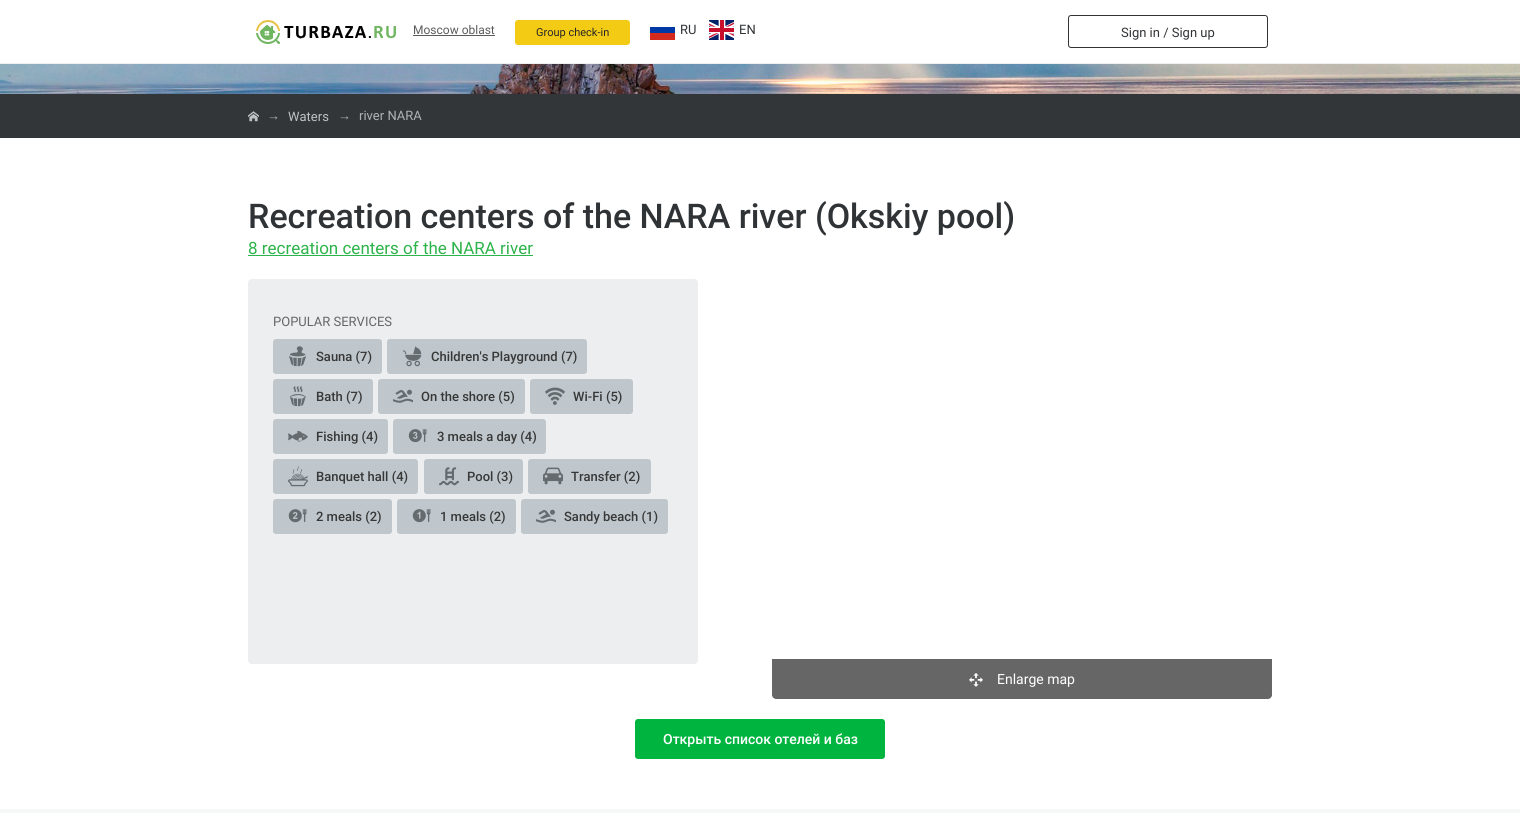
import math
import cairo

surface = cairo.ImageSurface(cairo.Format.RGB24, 1520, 813)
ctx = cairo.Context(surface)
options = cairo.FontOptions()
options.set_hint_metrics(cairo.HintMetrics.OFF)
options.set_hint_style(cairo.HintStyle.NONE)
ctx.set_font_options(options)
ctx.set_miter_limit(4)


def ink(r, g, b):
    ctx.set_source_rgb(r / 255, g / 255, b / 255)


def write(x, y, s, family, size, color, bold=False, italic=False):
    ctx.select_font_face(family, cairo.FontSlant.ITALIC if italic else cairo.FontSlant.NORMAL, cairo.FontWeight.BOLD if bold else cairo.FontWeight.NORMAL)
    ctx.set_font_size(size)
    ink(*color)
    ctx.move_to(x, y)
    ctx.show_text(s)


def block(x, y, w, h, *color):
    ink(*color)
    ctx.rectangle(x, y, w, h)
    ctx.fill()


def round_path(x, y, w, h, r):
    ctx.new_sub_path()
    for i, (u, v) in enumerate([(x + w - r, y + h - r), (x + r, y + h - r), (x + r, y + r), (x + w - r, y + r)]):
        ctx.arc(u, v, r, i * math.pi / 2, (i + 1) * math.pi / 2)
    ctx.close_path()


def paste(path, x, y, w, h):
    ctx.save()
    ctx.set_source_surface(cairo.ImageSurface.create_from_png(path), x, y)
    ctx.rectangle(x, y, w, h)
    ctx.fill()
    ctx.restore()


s1 = dict(family="Roboto", size=12, color=(91, 91, 91))
s2 = dict(family="Roboto", size=11, color=(40, 38, 39))
s3 = dict(family="Roboto", size=13, color=(48, 51, 54))
s4 = dict(family="Liberation Sans", size=13, color=(176, 179, 182))
s5 = dict(family="Roboto", size=13, color=(190, 194, 196))
s6 = dict(family="Roboto", size=13, color=(176, 179, 182))
s7 = dict(family="Roboto Medium", size=34, color=(48, 51, 54))
s8 = dict(family="Roboto", size=17, color=(45, 179, 75))
s9 = dict(family="Roboto", size=13, color=(102, 102, 102))
s10 = dict(family="Roboto Medium", size=13, color=(55, 55, 55))
s11 = dict(family="Roboto", size=14, color=(255, 255, 255))
s12 = dict(family="Roboto Medium", size=14, color=(255, 255, 255))

ink(246, 247, 247)
ctx.paint()
block(0, 0, 1520, 63, 255, 255, 255)
block(0, 63, 1520, 1, 238, 239, 239)
paste("pic1.png", 256, 20, 140, 24)
write(413, 34, "Moscow oblast", **s1)
block(413, 35, 82, 1, 91, 91, 91)
ink(244, 203, 20)
round_path(515, 20, 115, 25, 3)
ctx.fill()
write(536, 36, "Group check-in", **s2)
block(650, 33, 25, 7, 213, 43, 30)
block(650, 27, 25, 6, 0, 57, 166)
write(680, 34, "RU", **s3)
paste("pic2.png", 709, 20, 25, 20)
write(739, 34, "EN", **s3)
round_path(1068.5, 15.5, 199, 32, 2.5)
ink(51, 51, 51)
ctx.set_line_width(1)
ctx.stroke()
write(1121, 37, "Sign in / Sign up", **s3)
paste("pic3.png", 0, 64, 1520, 30)
block(0, 94, 1520, 44, 50, 54, 57)
paste("pic4.png", 248, 111, 11, 11)
write(267, 120, "→", **s4)
write(288, 121, "Waters", **s5)
write(338, 120, "→", **s4)
write(359, 120, "river NARA", **s6)
block(0, 138, 1520, 671, 255, 255, 255)
write(248, 228, "Recreation centers of the NARA river (Okskiy pool)", **s7)
write(248, 254, "8 recreation centers of the NARA river", **s8)
block(248, 255, 285, 1, 45, 179, 75)
ink(236, 238, 240)
round_path(248, 279, 450, 385, 4)
ctx.fill()
write(273, 326, "POPULAR SERVICES", **s9)
ink(191, 199, 204)
round_path(273, 339, 109, 35, 3)
ctx.fill()
paste("pic5.png", 289, 346, 17, 21)
write(316, 361, "Sauna (7)", **s10)
ink(191, 199, 204)
round_path(387, 339, 200, 35, 3)
ctx.fill()
paste("pic6.png", 403, 346, 19, 21)
write(431, 361, "Children's Playground (7)", **s10)
ink(191, 199, 204)
round_path(273, 379, 100, 35, 3)
ctx.fill()
paste("pic7.png", 290, 386, 16, 21)
write(316, 401, "Bath (7)", **s10)
ink(191, 199, 204)
round_path(378, 379, 147, 35, 3)
ctx.fill()
paste("pic8.png", 393, 389, 20, 14)
write(421, 401, "On the shore (5)", **s10)
ink(191, 199, 204)
round_path(530, 379, 103, 35, 3)
ctx.fill()
paste("pic9.png", 545, 387, 20, 18)
write(573, 401, "Wi-Fi (5)", **s10)
ink(191, 199, 204)
round_path(273, 419, 115, 35, 3)
ctx.fill()
paste("pic10.png", 288, 431, 20, 11)
write(316, 441, "Fishing (4)", **s10)
ink(191, 199, 204)
round_path(393, 419, 153, 35, 3)
ctx.fill()
paste("pic11.png", 408, 429, 19, 14)
write(437, 441, "3 meals a day (4)", **s10)
ink(191, 199, 204)
round_path(273, 459, 145, 35, 3)
ctx.fill()
paste("pic12.png", 288, 466, 20, 21)
write(316, 481, "Banquet hall (4)", **s10)
ink(191, 199, 204)
round_path(424, 459, 99, 35, 3)
ctx.fill()
paste("pic13.png", 439, 467, 20, 19)
write(467, 481, "Pool (3)", **s10)
ink(191, 199, 204)
round_path(528, 459, 123, 35, 3)
ctx.fill()
paste("pic14.png", 543, 467, 20, 18)
write(571, 481, "Transfer (2)", **s10)
ink(191, 199, 204)
round_path(273, 499, 119, 35, 3)
ctx.fill()
paste("pic15.png", 288, 509, 19, 14)
write(316, 521, "2 meals (2)", **s10)
ink(191, 199, 204)
round_path(397, 499, 119, 35, 3)
ctx.fill()
paste("pic16.png", 412, 509, 19, 14)
write(440, 521, "1 meals (2)", **s10)
ink(191, 199, 204)
round_path(521, 499, 147, 35, 3)
ctx.fill()
paste("pic8.png", 536, 509, 20, 14)
write(564, 521, "Sandy beach (1)", **s10)
ink(102, 102, 102)
ctx.new_path()
ctx.move_to(772, 659)
ctx.line_to(1272, 659)
ctx.line_to(1272, 695)
ctx.curve_to(1272, 697, 1270, 699, 1268, 699)
ctx.line_to(776, 699)
ctx.curve_to(774, 699, 772, 697, 772, 695)
ctx.close_path()
ctx.fill()
paste("pic17.png", 969, 673, 14, 14)
write(997, 684, "Enlarge map", **s11)
ink(0, 180, 64)
round_path(635, 719, 250, 40, 3)
ctx.fill()
write(663, 744, "Открыть список отелей и баз", **s12)
surface.write_to_png("screenshot.png")
